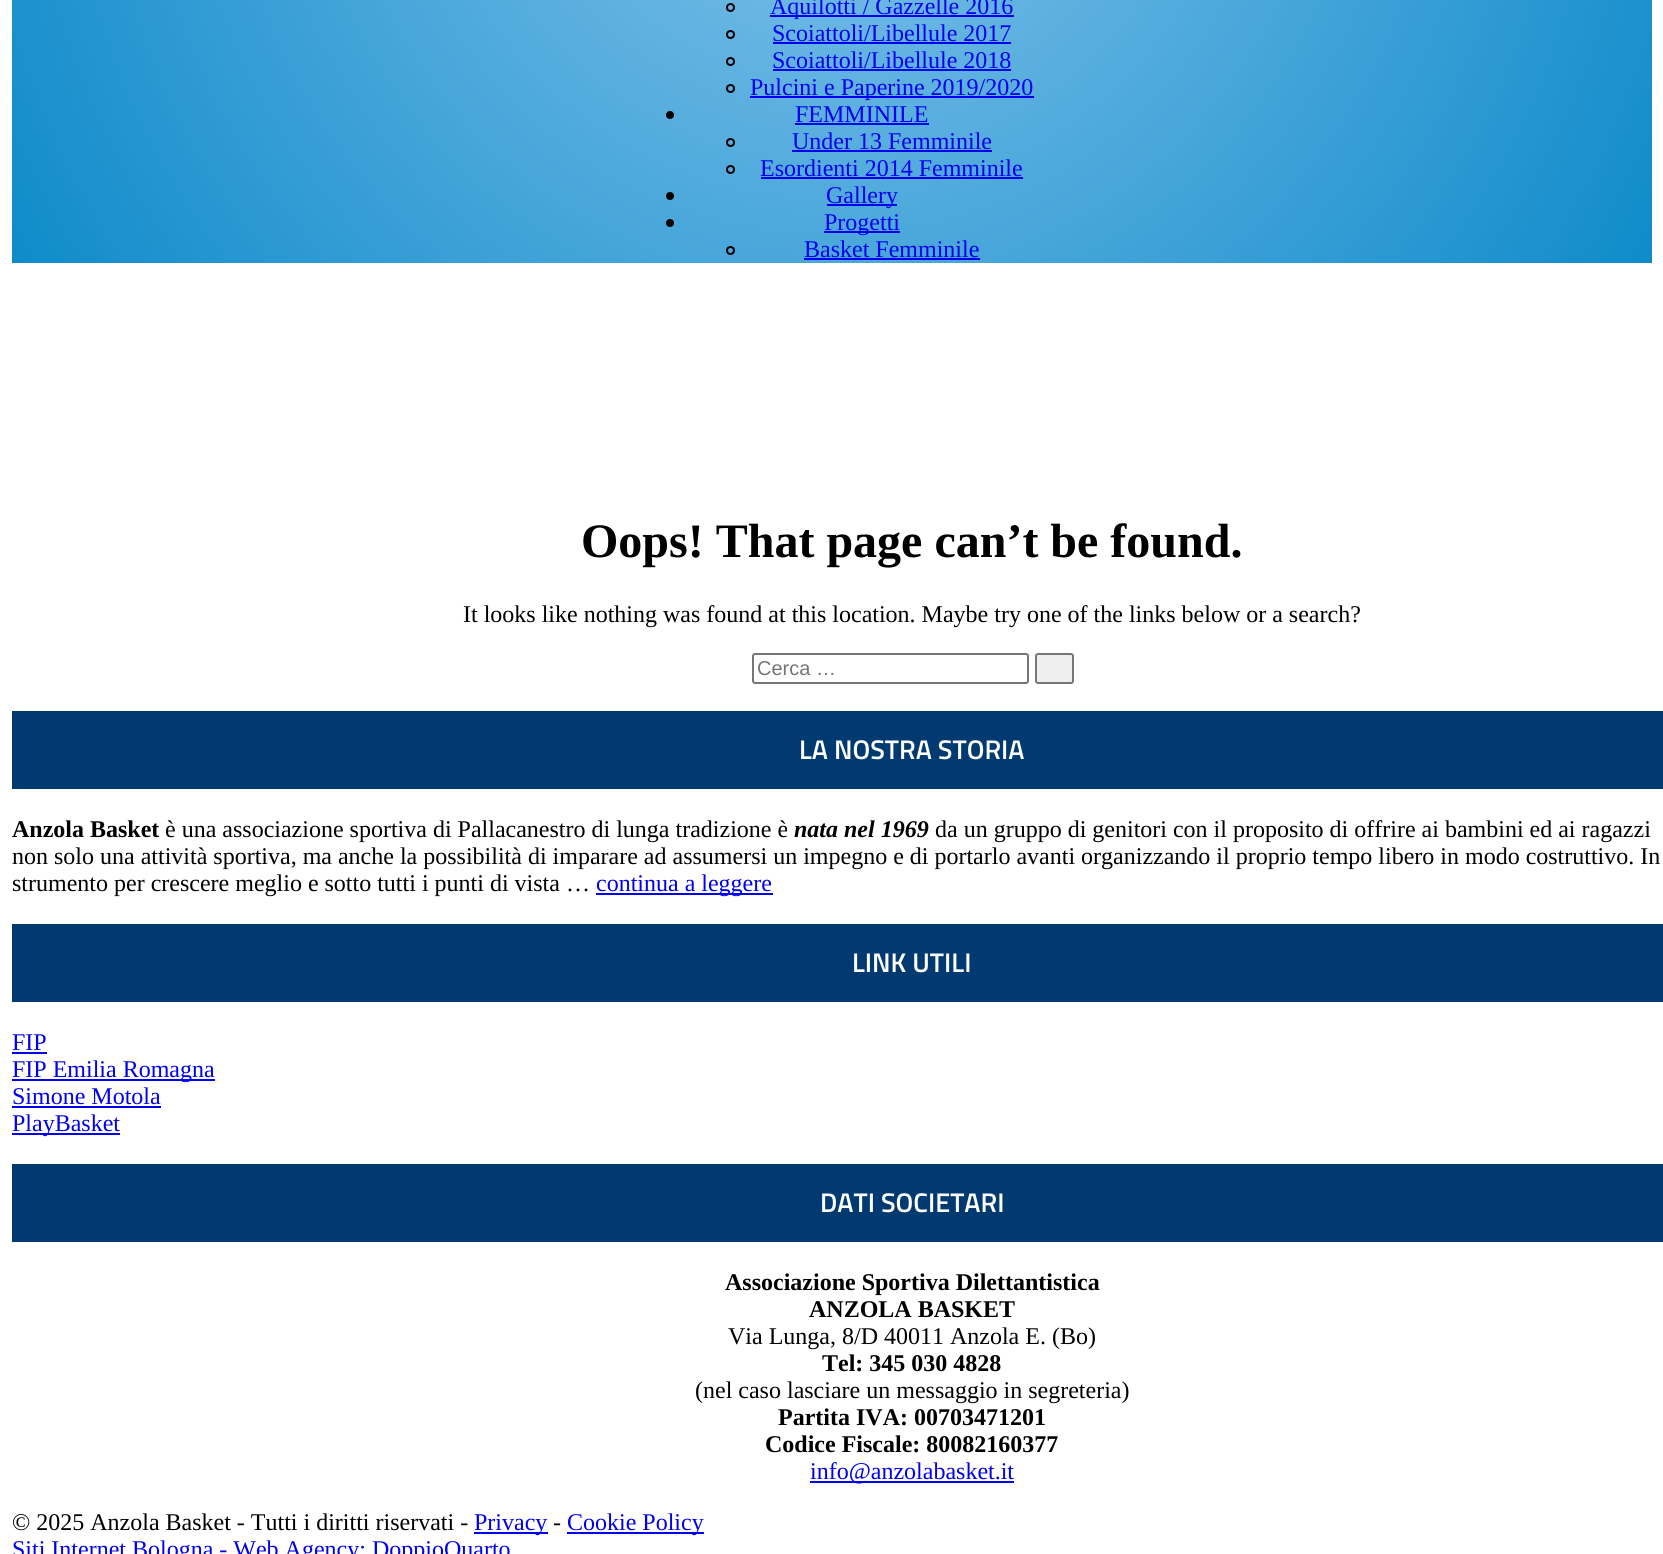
import math
import cairo

surface = cairo.ImageSurface(cairo.Format.RGB24, 1663, 1554)
ctx = cairo.Context(surface)
options = cairo.FontOptions()
options.set_hint_metrics(cairo.HintMetrics.OFF)
options.set_hint_style(cairo.HintStyle.NONE)
ctx.set_font_options(options)
ctx.set_miter_limit(4)


def ink(r, g, b):
    ctx.set_source_rgb(r / 255, g / 255, b / 255)


def write(x, y, s, family, size, color, bold=False, italic=False):
    ctx.select_font_face(family, cairo.FontSlant.ITALIC if italic else cairo.FontSlant.NORMAL, cairo.FontWeight.BOLD if bold else cairo.FontWeight.NORMAL)
    ctx.set_font_size(size)
    ink(*color)
    ctx.move_to(x, y)
    ctx.show_text(s)


def block(x, y, w, h, *color):
    ink(*color)
    ctx.rectangle(x, y, w, h)
    ctx.fill()


def round_path(x, y, w, h, r):
    ctx.new_sub_path()
    for i, (u, v) in enumerate([(x + w - r, y + h - r), (x + r, y + h - r), (x + r, y + r), (x + w - r, y + r)]):
        ctx.arc(u, v, r, i * math.pi / 2, (i + 1) * math.pi / 2)
    ctx.close_path()


s1 = dict(family="Liberation Serif", size=24, color=(0, 0, 238))
s2 = dict(family="Liberation Serif", size=48, color=(0, 0, 0), bold=True)
s3 = dict(family="Liberation Serif", size=24, color=(0, 0, 0))
s4 = dict(family="Liberation Sans", size=20, color=(117, 117, 117))
s5 = dict(family="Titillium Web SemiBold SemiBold", size=27, color=(255, 255, 255))
s6 = dict(family="Liberation Serif", size=24, color=(0, 0, 0), bold=True)
s7 = dict(family="Liberation Serif", size=24, color=(0, 0, 0), bold=True, italic=True)

ink(255, 255, 255)
ctx.paint()
gradient = cairo.RadialGradient(832, -214, 0, 832, -214, 948)
gradient.add_color_stop_rgba(0, 0.518, 0.765, 0.922, 1)
gradient.add_color_stop_rgba(1, 0.059, 0.545, 0.792, 1)
ctx.set_source(gradient)
ctx.rectangle(12, 0, 1640, 263)
ctx.fill()
ctx.arc(730.5, 7.5, 3.5, 0, 2 * math.pi)
ink(0, 0, 0)
ctx.stroke()
block(770, 15, 244, 2, 0, 0, 238)
write(770, 14, "Aquilotti / Gazzelle 2016", **s1)
ctx.new_path()
ctx.arc(730.5, 34.5, 3.5, 0, 2 * math.pi)
ink(0, 0, 0)
ctx.stroke()
write(772, 41, "Scoiattoli/Libellule 2017", **s1)
block(773, 42, 238, 2, 0, 0, 238)
ctx.new_path()
ctx.arc(730.5, 61.5, 3.5, 0, 2 * math.pi)
ink(0, 0, 0)
ctx.stroke()
write(772, 68, "Scoiattoli/Libellule 2018", **s1)
block(773, 69, 238, 2, 0, 0, 238)
ctx.new_path()
ctx.arc(730.5, 88.5, 3.5, 0, 2 * math.pi)
ink(0, 0, 0)
ctx.stroke()
block(750, 96, 284, 2, 0, 0, 238)
write(750, 95, "Pulcini e Paperine 2019/2020", **s1)
ink(0, 0, 0)
ctx.new_path()
ctx.arc(670, 115, 4, 0, 2 * math.pi)
ctx.fill()
write(795, 122, "FEMMINILE", **s1)
block(795, 123, 134, 2, 0, 0, 238)
ctx.new_path()
ctx.arc(730.5, 142.5, 3.5, 0, 2 * math.pi)
ink(0, 0, 0)
ctx.stroke()
write(792, 149, "Under 13 Femminile", **s1)
block(792, 150, 200, 2, 0, 0, 238)
ctx.new_path()
ctx.arc(730.5, 169.5, 3.5, 0, 2 * math.pi)
ink(0, 0, 0)
ctx.stroke()
write(760, 176, "Esordienti 2014 Femminile", **s1)
block(761, 177, 262, 2, 0, 0, 238)
ink(0, 0, 0)
ctx.new_path()
ctx.arc(670, 196, 4, 0, 2 * math.pi)
ctx.fill()
block(827, 204, 70, 2, 0, 0, 238)
write(826, 203, "Gallery", **s1)
ink(0, 0, 0)
ctx.new_path()
ctx.arc(670, 223, 4, 0, 2 * math.pi)
ctx.fill()
block(824, 231, 76, 2, 0, 0, 238)
write(824, 230, "Progetti", **s1)
ctx.new_path()
ctx.arc(730.5, 250.5, 3.5, 0, 2 * math.pi)
ink(0, 0, 0)
ctx.stroke()
write(804, 257, "Basket Femminile", **s1)
block(804, 258, 176, 2, 0, 0, 238)
write(581, 557, "Oops! That page can’t be found.", **s2)
write(463, 622, "It looks like nothing was found at this location. Maybe try one of the links below or a search?", **s3)
round_path(753, 654, 275, 29, 2)
ink(118, 118, 118)
ctx.stroke()
ctx.save()
ctx.rectangle(758, 657, 246, 23)
ctx.clip()
write(757, 675, "Cerca …", **s4)
ctx.restore()
ink(239, 239, 239)
round_path(1036, 654, 37, 29, 2)
ctx.fill_preserve()
ink(118, 118, 118)
ctx.stroke()
block(12, 711, 1651, 78, 1, 57, 113)
write(799, 759, "LA NOSTRA STORIA", **s5)
write(12, 837, "Anzola Basket", **s6)
write(165, 837, "è una associazione sportiva di Pallacanestro di lunga tradizione è", **s3)
write(794, 837, "nata nel 1969", **s7)
write(935, 837, "da un gruppo di genitori con il proposito di offrire ai bambini ed ai ragazzi", **s3)
write(12, 864, "non solo una attività sportiva, ma anche la possibilità di imparare ad assumersi un impegno e di portarlo avanti organizzando il proprio tempo libero in modo costruttivo. In", **s3)
write(12, 891, "strumento per crescere meglio e sotto tutti i punti di vista …", **s3)
block(596, 893, 177, 2, 0, 0, 238)
write(596, 891, "continua a leggere", **s1)
block(12, 924, 1651, 78, 1, 57, 113)
write(852, 972, "LINK UTILI", **s5)
write(12, 1050, "FIP", **s1)
block(12, 1052, 35, 2, 0, 0, 238)
block(12, 1079, 203, 2, 0, 0, 238)
write(12, 1077, "FIP Emilia Romagna", **s1)
write(12, 1104, "Simone Motola", **s1)
block(12, 1106, 149, 2, 0, 0, 238)
block(12, 1133, 108, 2, 0, 0, 238)
write(12, 1131, "PlayBasket", **s1)
block(12, 1164, 1651, 78, 1, 57, 113)
write(820, 1212, "DATI SOCIETARI", **s5)
write(725, 1290, "Associazione Sportiva Dilettantistica", **s6)
write(809, 1317, "ANZOLA BASKET", **s6)
write(728, 1344, "Via Lunga, 8/D 40011 Anzola E. (Bo)", **s3)
write(822, 1371, "Tel: 345 030 4828", **s6)
write(695, 1398, "(nel caso lasciare un messaggio in segreteria)", **s3)
write(778, 1425, "Partita IVA: 00703471201", **s6)
write(765, 1452, "Codice Fiscale: 80082160377", **s6)
block(810, 1481, 204, 2, 0, 0, 238)
write(810, 1479, "info@anzolabasket.it", **s1)
write(12, 1530, "© 2025 Anzola Basket - Tutti i diritti riservati -", **s3)
block(474, 1532, 74, 2, 0, 0, 238)
write(474, 1530, "Privacy", **s1)
write(553, 1530, "-", **s3)
block(567, 1532, 137, 2, 0, 0, 238)
write(567, 1530, "Cookie Policy", **s1)
write(12, 1557, "Siti Internet Bologna - Web Agency: DoppioQuarto", **s1)
surface.write_to_png("screenshot.png")
